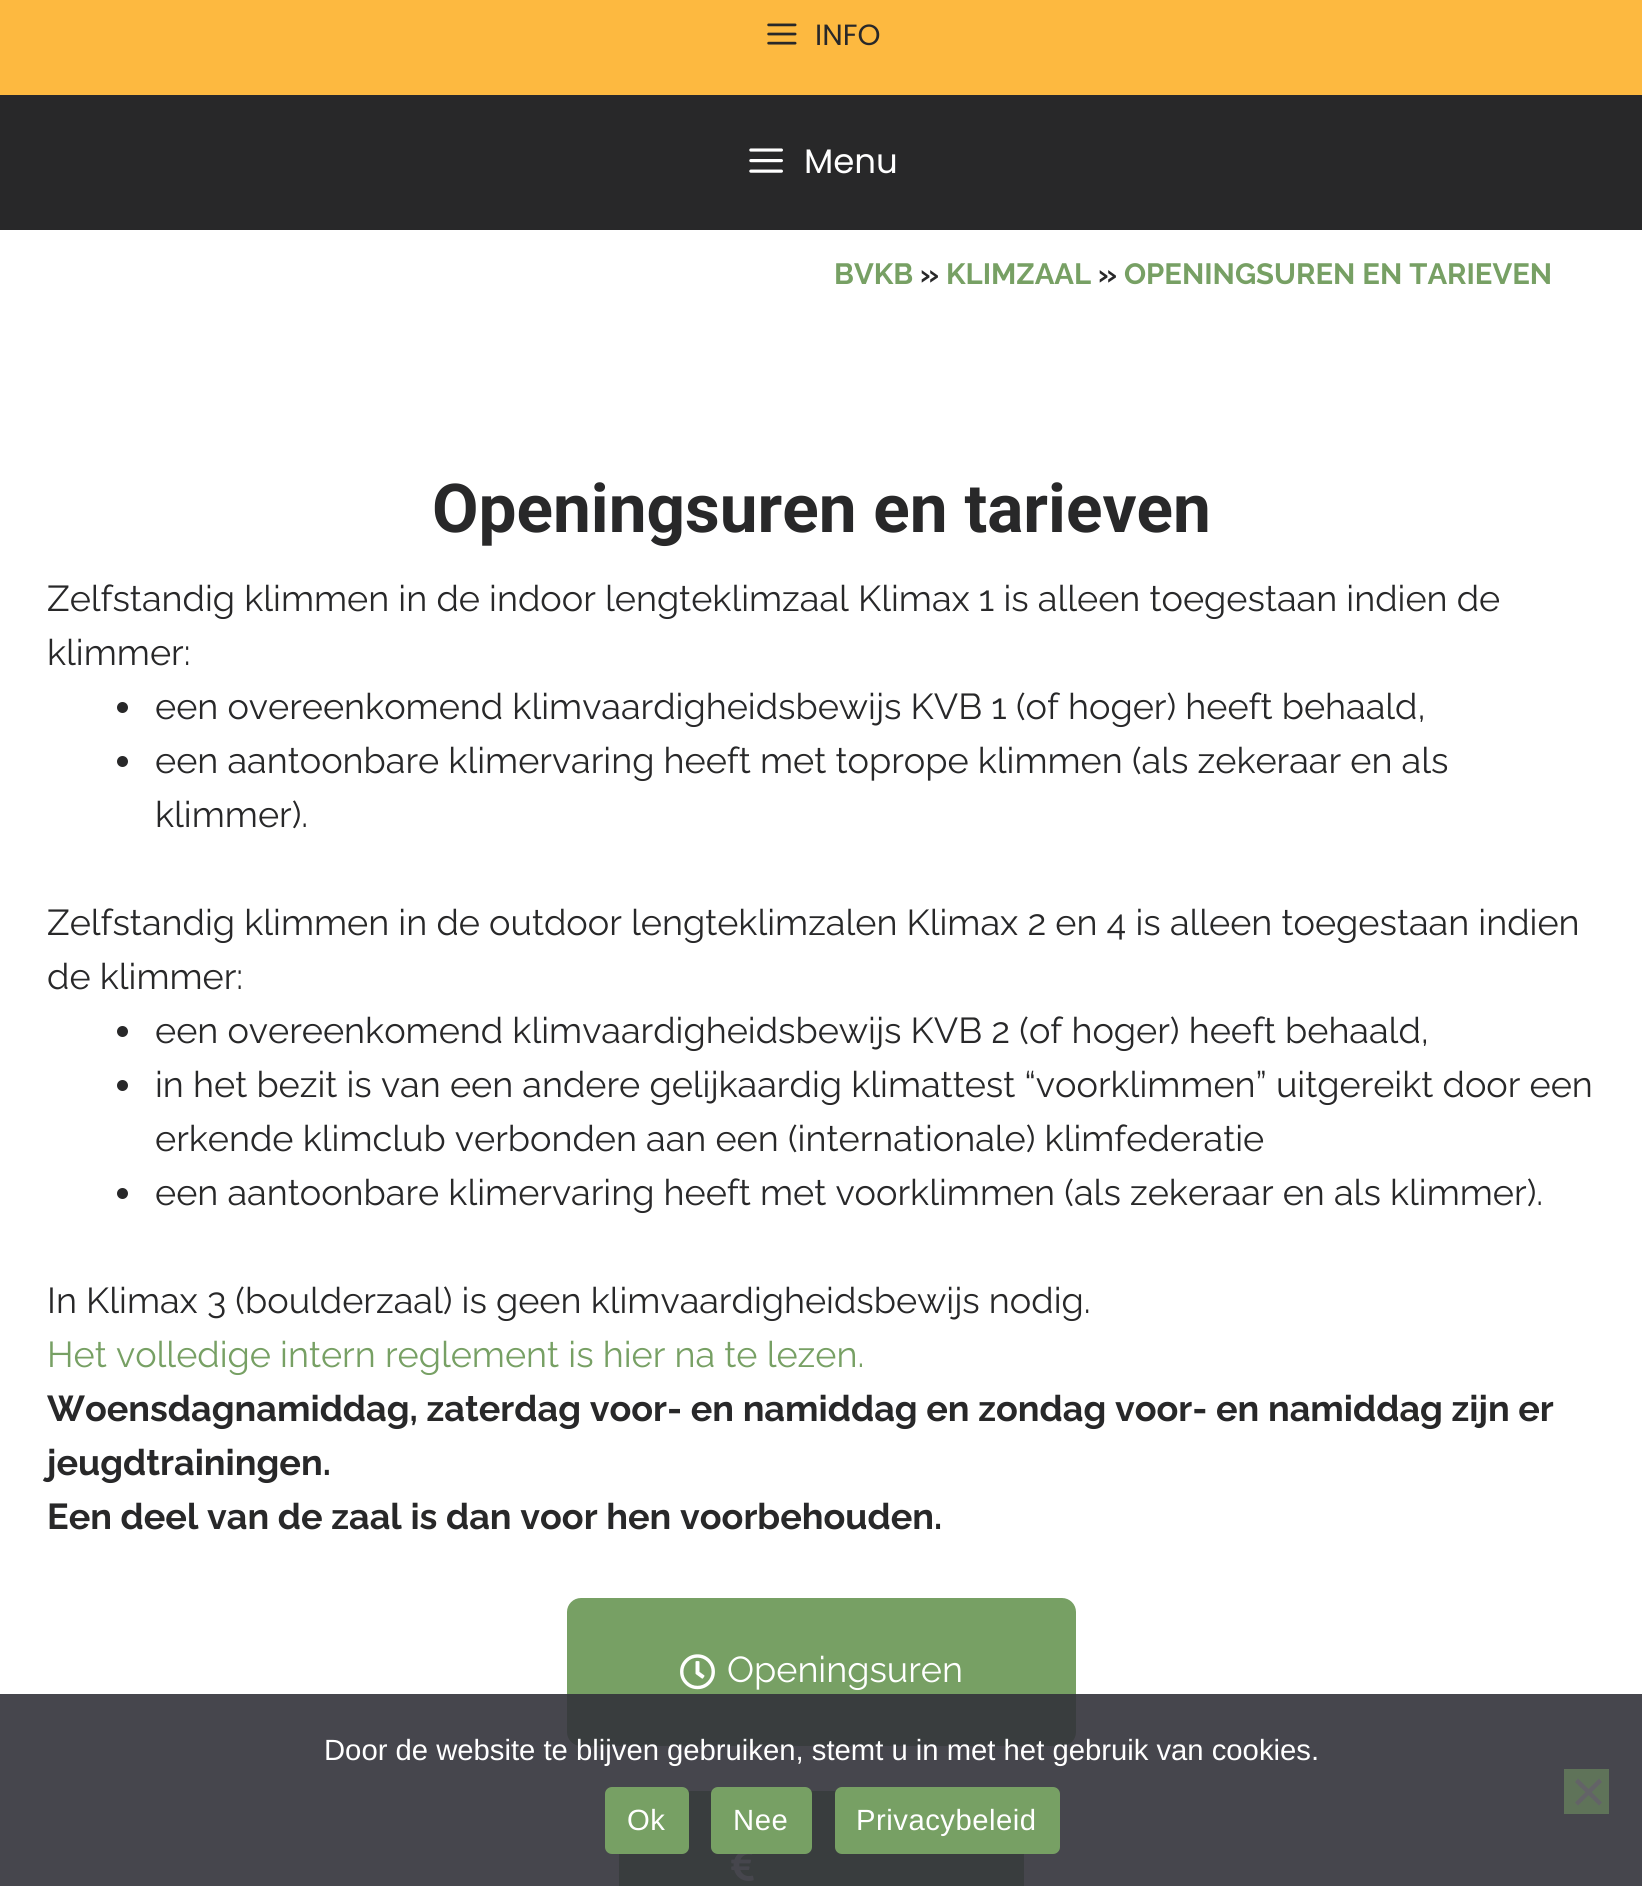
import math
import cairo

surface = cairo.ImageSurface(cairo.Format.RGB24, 1642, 1886)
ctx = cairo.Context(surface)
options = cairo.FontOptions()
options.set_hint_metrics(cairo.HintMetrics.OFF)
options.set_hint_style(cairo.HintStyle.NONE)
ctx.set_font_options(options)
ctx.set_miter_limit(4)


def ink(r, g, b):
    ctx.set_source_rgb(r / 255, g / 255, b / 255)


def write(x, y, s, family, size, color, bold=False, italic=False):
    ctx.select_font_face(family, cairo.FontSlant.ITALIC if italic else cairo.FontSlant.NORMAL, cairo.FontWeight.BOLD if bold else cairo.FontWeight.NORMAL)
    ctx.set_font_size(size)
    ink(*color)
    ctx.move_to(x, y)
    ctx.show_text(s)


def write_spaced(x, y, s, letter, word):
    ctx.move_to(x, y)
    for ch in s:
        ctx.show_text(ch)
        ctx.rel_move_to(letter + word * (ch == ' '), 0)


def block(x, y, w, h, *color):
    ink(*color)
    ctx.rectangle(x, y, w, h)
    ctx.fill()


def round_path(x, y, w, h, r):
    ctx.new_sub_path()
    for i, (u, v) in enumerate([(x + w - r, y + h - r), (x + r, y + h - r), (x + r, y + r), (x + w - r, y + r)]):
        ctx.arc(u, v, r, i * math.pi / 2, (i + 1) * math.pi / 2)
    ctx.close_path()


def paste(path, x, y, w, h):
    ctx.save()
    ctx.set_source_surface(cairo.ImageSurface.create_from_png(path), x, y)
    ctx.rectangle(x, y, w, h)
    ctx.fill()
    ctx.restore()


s1 = dict(family="Poppins", size=29.25, color=(40, 40, 41))
s2 = dict(family="Poppins", size=34, color=(255, 255, 255))
s3 = dict(family="Raleway", size=29.25, color=(119, 160, 100), bold=True)
s4 = dict(family="Raleway", size=29.25, color=(40, 40, 41), bold=True)
s5 = dict(family="Roboto", size=67.5, color=(40, 40, 41), bold=True)
s6 = dict(family="Raleway", size=36, color=(40, 40, 41))
s7 = dict(family="Raleway", size=36, color=(119, 160, 100))
s8 = dict(family="Raleway", size=36, color=(40, 40, 41), bold=True)
s9 = dict(family="Raleway", size=36, color=(255, 255, 255))
s10 = dict(family="Liberation Sans", size=29.25, color=(255, 255, 255))

ink(255, 255, 255)
ctx.paint()
block(0, 0, 1642, 95, 253, 185, 64)
paste("pic1.png", 767, 23, 30, 22)
write(815, 45, "INFO", **s1)
block(0, 95, 1642, 135, 40, 40, 41)
paste("pic2.png", 749, 148, 34, 25)
write(804, 173, "Menu", **s2)
write(834, 284, "BVKB", **s3)
write(920, 284, "»", **s4)
write(946, 284, "KLIMZAAL", **s3)
write(1098, 284, "»", **s4)
write(1124, 284, "OPENINGSUREN EN TARIEVEN", **s3)
write(432, 532, "Openingsuren en tarieven", **s5)
write(47, 611, "Zelfstandig klimmen in de indoor lengteklimzaal Klimax 1 is alleen toegestaan indien de", **s6)
write(47, 665, "klimmer:", **s6)
ctx.new_path()
ctx.arc(122.5, 707.5, 5.5, 0, 2 * math.pi)
ctx.fill()
write(155, 719, "een overeenkomend klimvaardigheidsbewijs KVB 1 (of hoger) heeft behaald,", **s6)
ctx.new_path()
ctx.arc(122.5, 761.5, 5.5, 0, 2 * math.pi)
ctx.fill()
write(155, 773, "een aantoonbare klimervaring heeft met toprope klimmen (als zekeraar en als", **s6)
write(155, 827, "klimmer).", **s6)
write(47, 935, "Zelfstandig klimmen in de outdoor lengteklimzalen Klimax 2 en 4 is alleen toegestaan indien", **s6)
write(47, 989, "de klimmer:", **s6)
ctx.new_path()
ctx.arc(122.5, 1031.5, 5.5, 0, 2 * math.pi)
ctx.fill()
write(155, 1043, "een overeenkomend klimvaardigheidsbewijs KVB 2 (of hoger) heeft behaald,", **s6)
ctx.new_path()
ctx.arc(122.5, 1085.5, 5.5, 0, 2 * math.pi)
ctx.fill()
write(155, 1097, "in het bezit is van een andere gelijkaardig klimattest “voorklimmen” uitgereikt door een", **s6)
write(155, 1151, "erkende klimclub verbonden aan een (internationale) klimfederatie", **s6)
ctx.new_path()
ctx.arc(122.5, 1193.5, 5.5, 0, 2 * math.pi)
ctx.fill()
write(155, 1205, "een aantoonbare klimervaring heeft met voorklimmen (als zekeraar en als klimmer).", **s6)
write(47, 1313, "In Klimax 3 (boulderzaal) is geen klimvaardigheidsbewijs nodig.", **s6)
write(47, 1367, "Het volledige intern reglement is hier na te lezen.", **s7)
write(47, 1421, "Woensdagnamiddag, zaterdag voor- en namiddag en zondag voor- en namiddag zijn er", **s8)
write(47, 1475, "jeugdtrainingen.", **s8)
write(47, 1529, "Een deel van de zaal is dan voor hen voorbehouden.", **s8)
ink(119, 160, 100)
round_path(567, 1598, 509, 148, 14)
ctx.fill()
paste("pic3.png", 680, 1654, 35, 36)
write(727, 1682, "Openingsuren", **s9)
block(619, 1791, 405, 95, 119, 160, 100)
paste("pic4.png", 731, 1854, 23, 27)
ctx.set_source_rgba(0.196, 0.196, 0.227, 0.9)
ctx.rectangle(0, 1694, 1642, 192)
ctx.fill()
write(324, 1760, "Door de website te blijven gebruiken, stemt u in met het gebruik van cookies.", **s10)
block(1564, 1769, 45, 45, 95, 115, 89)
ink(99, 99, 103)
ctx.new_path()
ctx.move_to(1599, 1778.5)
ctx.line_to(1602, 1782)
ctx.line_to(1578, 1805.5)
ctx.line_to(1575, 1802.5)
ctx.close_path()
ctx.fill()
ctx.new_path()
ctx.move_to(1575, 1782)
ctx.line_to(1578, 1778.5)
ctx.line_to(1602, 1802.5)
ctx.line_to(1599, 1805.5)
ctx.close_path()
ctx.fill()
ink(119, 160, 100)
round_path(605, 1787, 84, 67, 7)
ctx.fill()
ink(255, 255, 255)
write_spaced(627, 1830, "Ok", 0.5, 0)
ink(119, 160, 100)
round_path(711, 1787, 101, 67, 7)
ctx.fill()
ink(255, 255, 255)
write_spaced(733, 1830, "Nee", 0.5, 0)
ink(119, 160, 100)
round_path(835, 1787, 225, 67, 7)
ctx.fill()
ink(255, 255, 255)
write_spaced(856, 1830, "Privacybeleid", 0.5, 0)
surface.write_to_png("screenshot.png")
